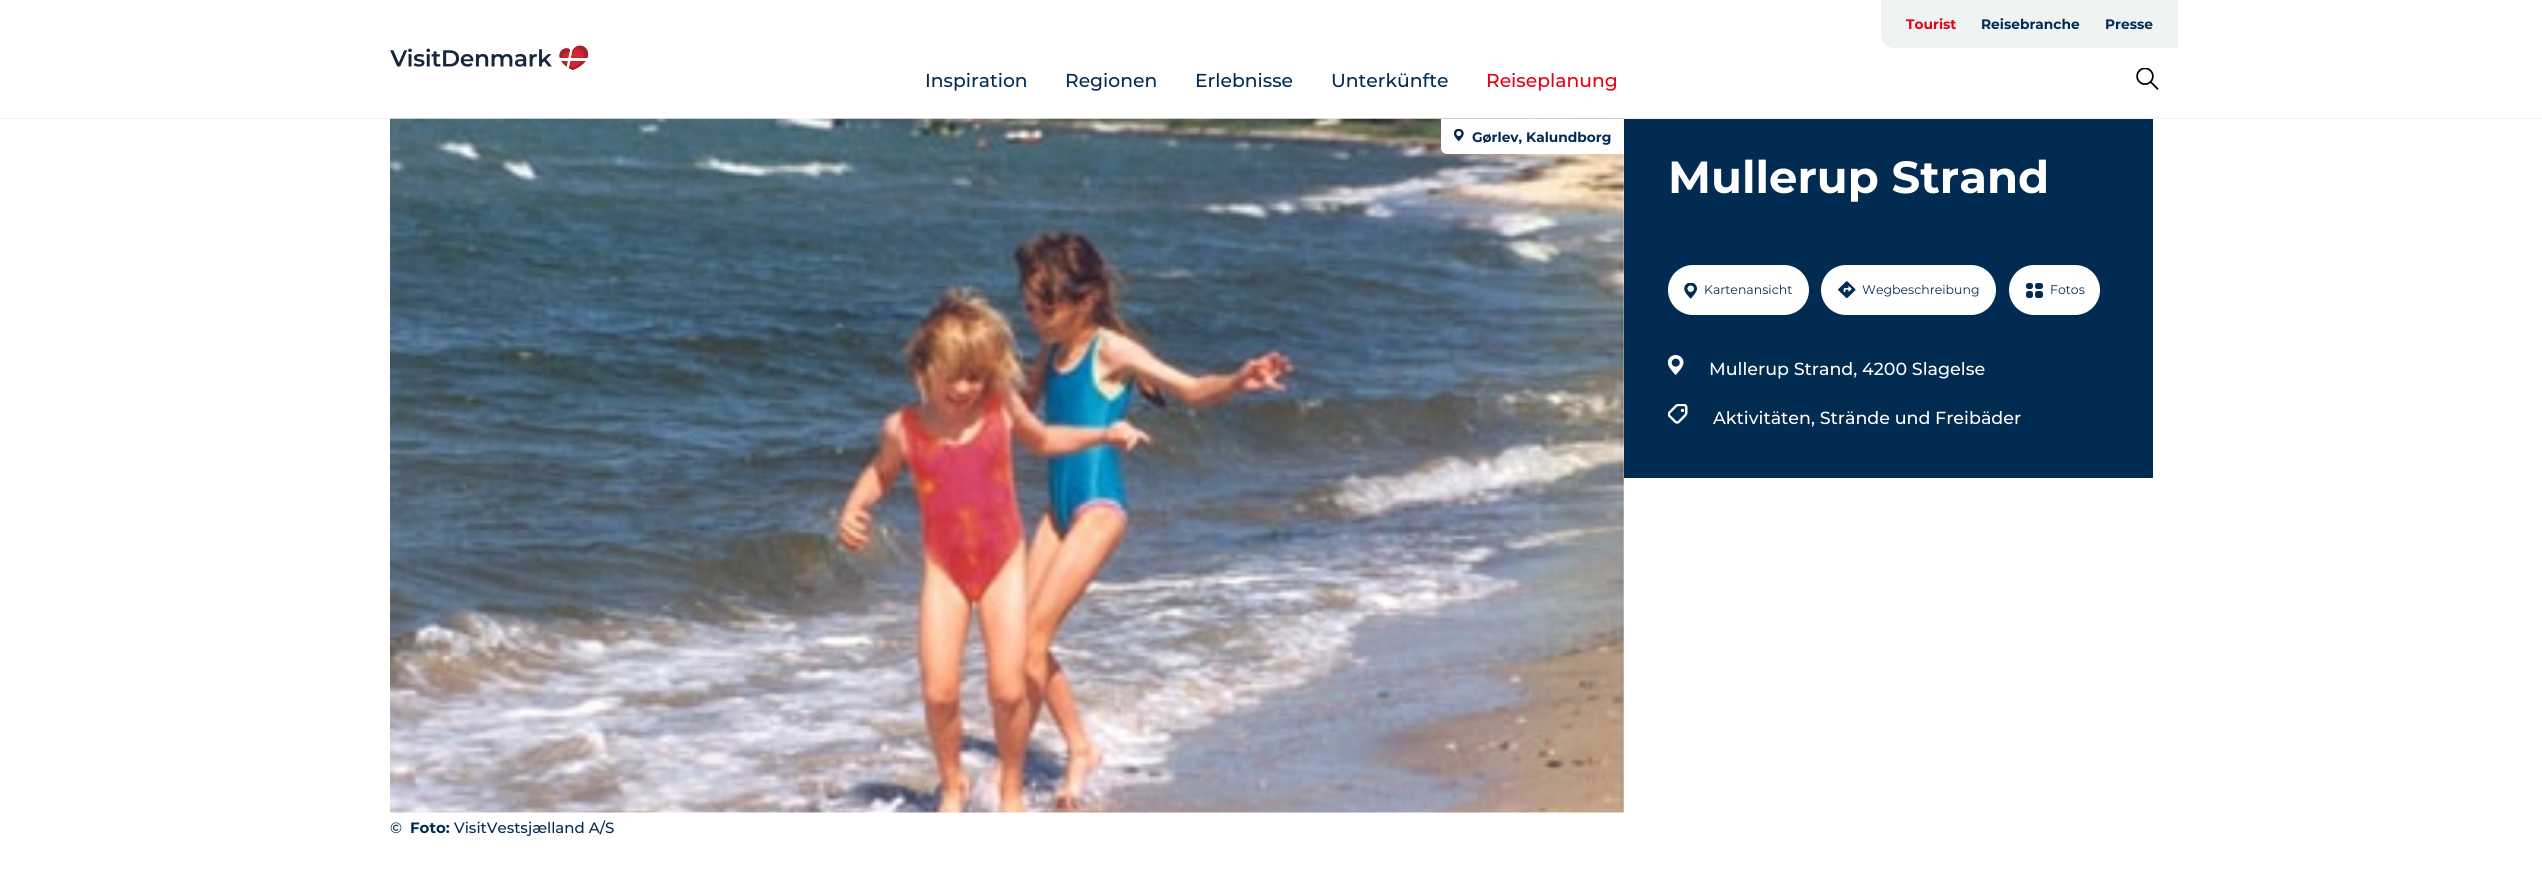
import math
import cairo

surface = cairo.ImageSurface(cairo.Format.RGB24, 2542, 879)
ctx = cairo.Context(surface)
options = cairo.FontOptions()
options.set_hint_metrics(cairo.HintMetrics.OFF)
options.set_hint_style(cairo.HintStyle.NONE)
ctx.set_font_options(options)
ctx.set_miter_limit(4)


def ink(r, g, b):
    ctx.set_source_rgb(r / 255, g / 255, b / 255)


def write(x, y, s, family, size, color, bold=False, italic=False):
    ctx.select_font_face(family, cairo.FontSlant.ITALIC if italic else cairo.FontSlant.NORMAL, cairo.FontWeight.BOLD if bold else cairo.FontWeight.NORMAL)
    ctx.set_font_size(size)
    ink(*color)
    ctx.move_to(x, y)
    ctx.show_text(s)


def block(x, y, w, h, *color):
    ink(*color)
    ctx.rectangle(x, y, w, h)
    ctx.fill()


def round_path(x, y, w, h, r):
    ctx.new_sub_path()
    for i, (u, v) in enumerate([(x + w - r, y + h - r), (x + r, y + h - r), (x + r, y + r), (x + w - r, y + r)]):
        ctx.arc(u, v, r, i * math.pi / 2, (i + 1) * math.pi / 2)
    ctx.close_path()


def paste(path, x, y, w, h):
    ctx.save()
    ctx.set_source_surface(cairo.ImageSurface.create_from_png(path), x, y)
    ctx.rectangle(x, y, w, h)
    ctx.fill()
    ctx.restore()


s1 = dict(family="Montserrat", size=13.75, color=(231, 0, 19), bold=True)
s2 = dict(family="Montserrat", size=13.75, color=(2, 43, 82), bold=True)
s3 = dict(family="Montserrat Medium", size=18.75, color=(2, 43, 82))
s4 = dict(family="Montserrat Medium", size=18.75, color=(231, 0, 19))
s5 = dict(family="Montserrat Medium", size=15, color=(2, 43, 82))
s6 = dict(family="Montserrat", size=15, color=(2, 43, 82), bold=True)
s7 = dict(family="Montserrat", size=45, color=(255, 255, 255), bold=True)
s8 = dict(family="Montserrat", size=12.5, color=(2, 43, 82))
s9 = dict(family="Montserrat Medium", size=17.5, color=(255, 255, 255))

ink(255, 255, 255)
ctx.paint()
block(0, 118, 2542, 1, 240, 241, 243)
paste("pic1.png", 390, 45, 199, 25)
ink(239, 243, 244)
ctx.new_path()
ctx.move_to(1881, 0)
ctx.line_to(2178, 0)
ctx.line_to(2178, 48)
ctx.line_to(1894, 48)
ctx.curve_to(1887, 48, 1881, 42, 1881, 35)
ctx.close_path()
ctx.fill()
write(1906, 29, "Tourist", **s1)
write(1981, 29, "Reisebranche", **s2)
write(2105, 29, "Presse", **s2)
write(925, 87, "Inspiration", **s3)
write(1065, 87, "Regionen", **s3)
write(1195, 87, "Erlebnisse", **s3)
write(1331, 87, "Unterkünfte", **s3)
write(1486, 87, "Reiseplanung", **s4)
paste("pic2.png", 2136, 68, 23, 22)
paste("pic3.png", 390, 118, 1234, 695)
ink(255, 255, 255)
ctx.new_path()
ctx.move_to(1441, 119)
ctx.line_to(1624, 119)
ctx.line_to(1624, 154)
ctx.line_to(1447, 154)
ctx.curve_to(1443.5, 154, 1441, 151.5, 1441, 148)
ctx.close_path()
ctx.fill()
paste("pic4.png", 1454, 129, 10, 12)
write(1472, 142, "Gørlev, Kalundborg", **s2)
write(390, 833, "©", **s5)
write(410, 833, "Foto:", **s6)
write(454, 833, "VisitVestsjælland A/S", **s5)
block(1624, 119, 529, 359, 2, 43, 82)
write(1668, 193, "Mullerup Strand", **s7)
round_path(1668, 265, 141, 50, 25)
ctx.fill()
paste("pic5.png", 1684, 283, 13, 16)
write(1704, 294, "Kartenansicht", **s8)
ink(255, 255, 255)
round_path(1821, 265, 175, 50, 25)
ctx.fill()
paste("pic6.png", 1838, 281, 18, 18)
write(1862, 294, "Wegbeschreibung", **s8)
ink(255, 255, 255)
round_path(2009, 265, 91, 50, 25)
ctx.fill()
paste("pic7.png", 2026, 283, 17, 15)
write(2050, 294, "Fotos", **s8)
paste("pic8.png", 1668, 355, 16, 20)
write(1709, 375, "Mullerup Strand, 4200 Slagelse", **s9)
paste("pic9.png", 1668, 404, 20, 20)
write(1713, 424, "Aktivitäten, Strände und Freibäder", **s9)
surface.write_to_png("screenshot.png")
